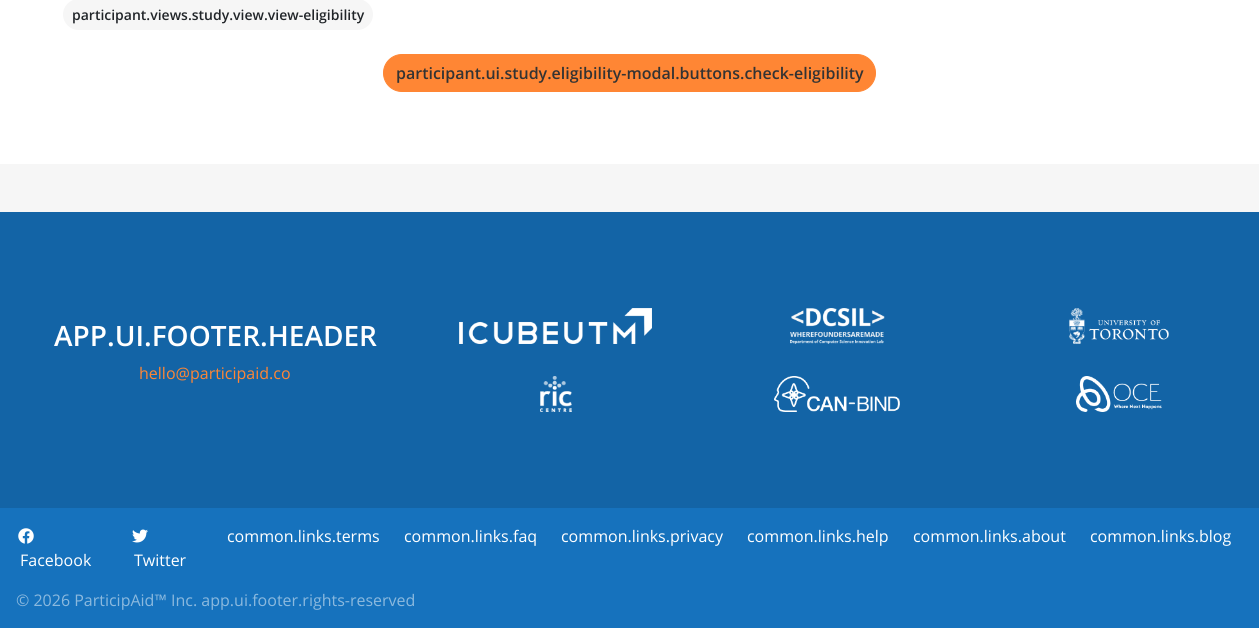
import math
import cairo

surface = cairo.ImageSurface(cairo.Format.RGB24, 1259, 628)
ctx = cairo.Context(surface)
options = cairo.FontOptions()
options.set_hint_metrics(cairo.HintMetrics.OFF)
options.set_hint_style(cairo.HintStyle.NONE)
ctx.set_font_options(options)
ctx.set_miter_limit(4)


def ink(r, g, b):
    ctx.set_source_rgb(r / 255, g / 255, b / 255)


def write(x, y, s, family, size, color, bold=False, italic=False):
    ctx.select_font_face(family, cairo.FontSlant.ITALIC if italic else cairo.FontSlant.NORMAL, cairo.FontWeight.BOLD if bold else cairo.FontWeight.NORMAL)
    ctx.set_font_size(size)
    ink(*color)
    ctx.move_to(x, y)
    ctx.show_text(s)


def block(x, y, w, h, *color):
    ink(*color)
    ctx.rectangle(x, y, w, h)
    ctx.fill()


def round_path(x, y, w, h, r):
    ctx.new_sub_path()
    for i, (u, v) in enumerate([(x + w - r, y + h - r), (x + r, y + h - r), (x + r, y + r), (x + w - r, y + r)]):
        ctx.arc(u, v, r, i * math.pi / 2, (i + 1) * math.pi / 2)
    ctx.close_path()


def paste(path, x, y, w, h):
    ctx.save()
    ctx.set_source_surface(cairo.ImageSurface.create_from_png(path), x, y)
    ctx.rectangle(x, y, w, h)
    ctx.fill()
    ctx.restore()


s1 = dict(family="Open Sans SemiBold", size=14, color=(33, 37, 41))
s2 = dict(family="Open Sans SemiBold", size=16, color=(51, 51, 51))
s3 = dict(family="Open Sans SemiBold", size=28, color=(255, 255, 255))
s4 = dict(family="Open Sans", size=16, color=(255, 134, 52))
s5 = dict(family="Open Sans", size=16, color=(255, 255, 255))
s6 = dict(family="Open Sans", size=16, color=(139, 185, 222))

ink(246, 246, 246)
ctx.paint()
block(0, 0, 1259, 164, 255, 255, 255)
ink(246, 246, 246)
round_path(63, -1, 310, 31, 15.5)
ctx.fill()
write(72, 20, "participant.views.study.view.view-eligibility", **s1)
ink(255, 134, 52)
round_path(383.5, 54.5, 492, 37, 18.5)
ctx.fill_preserve()
ctx.set_line_width(1)
ctx.stroke()
write(396, 79, "participant.ui.study.eligibility-modal.buttons.check-eligibility", **s2)
block(0, 212, 1259, 296, 19, 100, 166)
write(54, 346, "APP.UI.FOOTER.HEADER", **s3)
write(139, 379, "hello@participaid.co", **s4)
paste("pic1.png", 459, 308, 193, 36)
paste("pic2.png", 790, 308, 95, 36)
paste("pic3.png", 1069, 308, 100, 36)
paste("pic4.png", 540, 376, 32, 36)
paste("pic5.png", 774, 376, 126, 36)
paste("pic6.png", 1076, 376, 86, 36)
block(0, 508, 1259, 120, 22, 114, 189)
write(227, 542, "common.links.terms", **s5)
write(404, 542, "common.links.faq", **s5)
write(561, 542, "common.links.privacy", **s5)
write(747, 542, "common.links.help", **s5)
write(913, 542, "common.links.about", **s5)
write(1090, 542, "common.links.blog", **s5)
paste("pic7.png", 18, 528, 16, 16)
write(20, 566, "Facebook", **s5)
paste("pic8.png", 132, 529, 16, 14)
write(134, 566, "Twitter", **s5)
write(16, 606, "© 2026 ParticipAid™ Inc. app.ui.footer.rights-reserved", **s6)
surface.write_to_png("screenshot.png")
